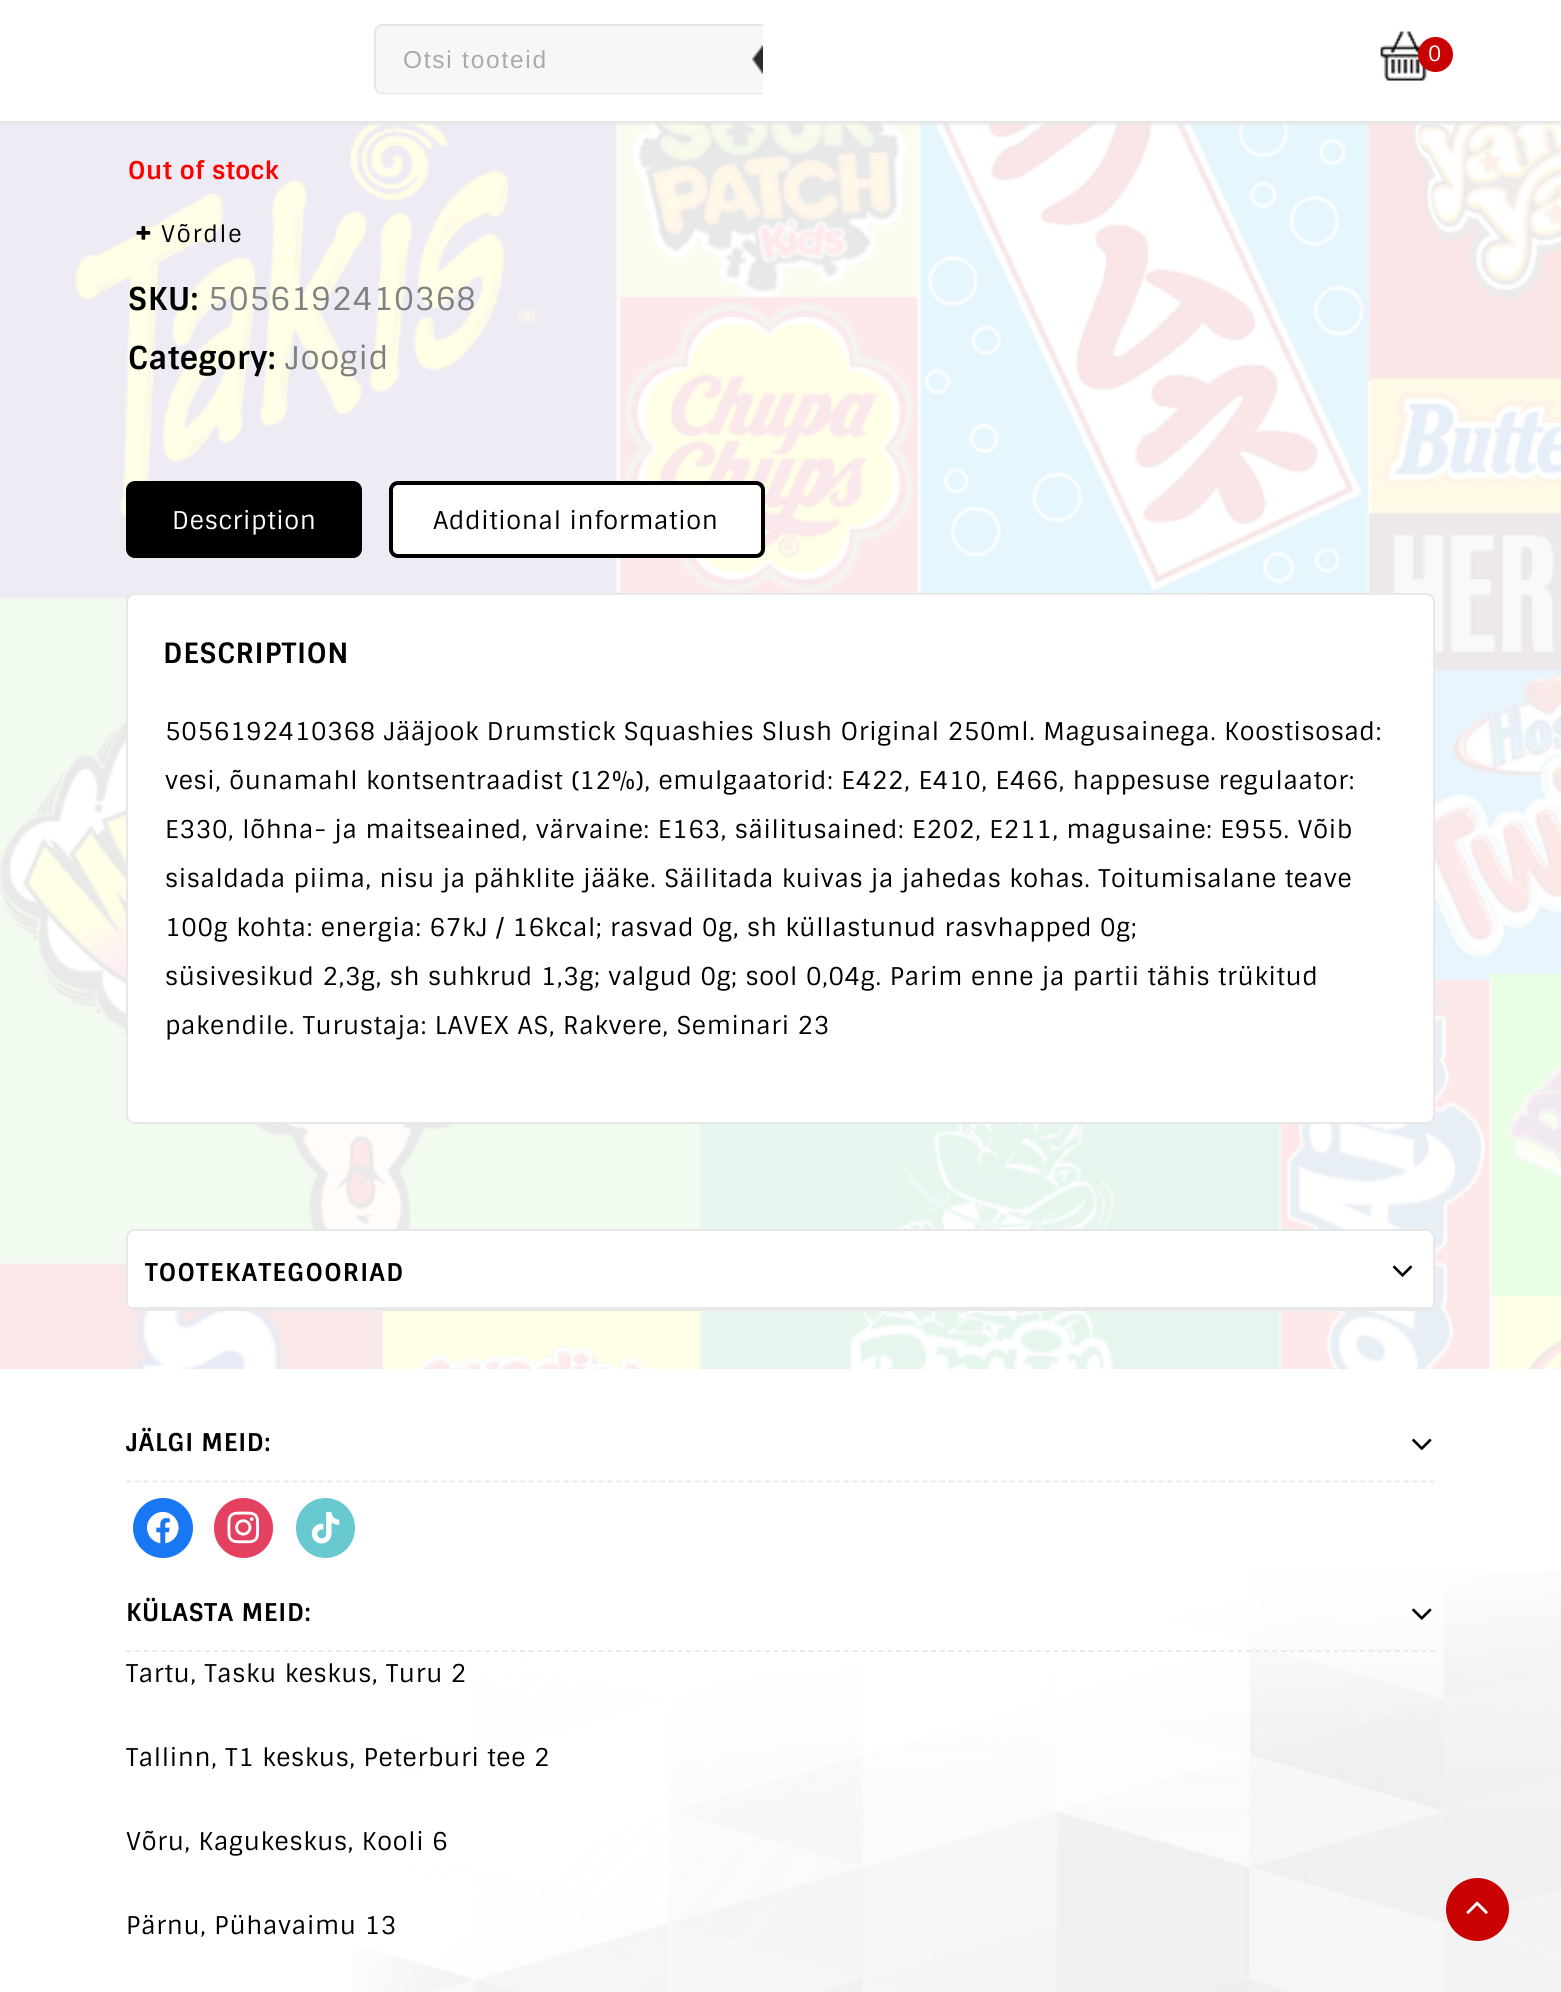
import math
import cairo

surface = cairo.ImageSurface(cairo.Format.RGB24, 1561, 1992)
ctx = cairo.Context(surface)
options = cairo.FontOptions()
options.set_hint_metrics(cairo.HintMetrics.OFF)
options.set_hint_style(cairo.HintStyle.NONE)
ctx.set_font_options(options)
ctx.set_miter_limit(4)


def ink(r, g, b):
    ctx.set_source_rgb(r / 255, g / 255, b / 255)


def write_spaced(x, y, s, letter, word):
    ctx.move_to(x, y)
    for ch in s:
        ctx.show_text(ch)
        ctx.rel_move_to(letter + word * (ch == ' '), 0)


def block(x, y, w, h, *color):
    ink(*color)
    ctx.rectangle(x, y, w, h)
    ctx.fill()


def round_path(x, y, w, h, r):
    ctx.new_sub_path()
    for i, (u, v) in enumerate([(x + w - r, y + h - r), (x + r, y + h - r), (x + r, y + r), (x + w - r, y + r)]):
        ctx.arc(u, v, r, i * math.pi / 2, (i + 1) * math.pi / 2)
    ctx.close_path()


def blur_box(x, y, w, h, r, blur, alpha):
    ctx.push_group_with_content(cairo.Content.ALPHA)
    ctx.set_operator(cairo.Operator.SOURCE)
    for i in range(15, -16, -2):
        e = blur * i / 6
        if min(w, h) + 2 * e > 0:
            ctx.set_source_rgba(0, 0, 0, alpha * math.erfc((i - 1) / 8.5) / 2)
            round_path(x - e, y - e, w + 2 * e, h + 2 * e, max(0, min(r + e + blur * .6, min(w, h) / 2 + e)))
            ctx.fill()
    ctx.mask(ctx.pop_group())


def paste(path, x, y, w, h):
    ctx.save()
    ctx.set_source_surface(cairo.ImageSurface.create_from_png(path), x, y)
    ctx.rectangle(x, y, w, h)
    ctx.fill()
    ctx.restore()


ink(255, 255, 255)
ctx.paint()
paste("pic1.png", 0, 121, 1561, 1248)
ink(229, 229, 229)
blur_box(0, 4, 1561, 120, 0, 1.5, 1)
block(0, 2, 1561, 119, 255, 255, 255)
ink(247, 247, 247)
ctx.new_path()
ctx.move_to(384, 25)
ctx.line_to(763, 25)
ctx.line_to(763, 95)
ctx.line_to(384, 95)
ctx.curve_to(379, 95, 375, 91, 375, 86)
ctx.line_to(375, 34)
ctx.curve_to(375, 29, 379, 25, 384, 25)
ctx.close_path()
ctx.fill()
paste("pic2.png", 752, 44, 11, 30)
ink(229, 229, 229)
ctx.set_fill_rule(cairo.FillRule.EVEN_ODD)
ctx.new_path()
ctx.move_to(383, 24)
ctx.line_to(763, 24)
ctx.line_to(763, 94)
ctx.line_to(383, 94)
ctx.curve_to(378, 94, 374, 91, 374, 86)
ctx.line_to(374, 33)
ctx.curve_to(374, 28, 378, 24, 383, 24)
ctx.close_path()
ctx.move_to(383, 26)
ctx.line_to(763, 26)
ctx.line_to(763, 93)
ctx.line_to(383, 93)
ctx.curve_to(379, 93, 376, 90, 376, 86)
ctx.line_to(376, 33)
ctx.curve_to(376, 29, 379, 26, 383, 26)
ctx.close_path()
ctx.fill()
ctx.select_font_face("Liberation Sans")
ctx.set_font_size(24.5)
ink(170, 170, 170)
write_spaced(403, 68, "Otsi tooteid", 1.75, 0)
paste("pic3.png", 1380, 31, 47, 50)
ink(201, 1, 0)
ctx.arc(1435.5, 54.5, 17.5, 0, 2 * math.pi)
ctx.fill()
ctx.select_font_face("Sintony")
ctx.set_font_size(21)
ink(255, 255, 255)
write_spaced(1428, 61, "0", 0.7, 0)
ctx.select_font_face("Sintony", cairo.FontSlant.NORMAL, cairo.FontWeight.BOLD)
ctx.set_font_size(24.5)
ink(255, 0, 0)
write_spaced(128, 179, "Out of stock", 0.7, 0)
paste("pic4.png", 136, 226, 15, 14)
ctx.select_font_face("Sintony")
ctx.set_font_size(23)
ink(0, 0, 0)
write_spaced(161, 242, "Võrdle", 1.75, 0)
ctx.select_font_face("Sintony", cairo.FontSlant.NORMAL, cairo.FontWeight.BOLD)
ctx.set_font_size(31.5)
write_spaced(128, 310, "SKU:", 0.7, 0)
ctx.select_font_face("Sintony")
ink(128, 128, 128)
write_spaced(208, 310, "5056192410368", 0.7, 0)
ctx.select_font_face("Sintony", cairo.FontSlant.NORMAL, cairo.FontWeight.BOLD)
ink(0, 0, 0)
write_spaced(128, 369, "Category:", 0.7, 0)
ctx.select_font_face("Sintony")
ink(128, 128, 128)
write_spaced(285, 369, "Joogid", 0.7, 0)
ink(0, 0, 0)
round_path(128, 483, 232, 73, 7)
ctx.fill_preserve()
ctx.set_line_width(4)
ctx.stroke()
ctx.set_font_size(24.5)
ink(255, 255, 255)
write_spaced(172, 529, "Description", 0.7, 0)
round_path(391, 483, 372, 73, 7)
ctx.fill_preserve()
ink(0, 0, 0)
ctx.stroke()
write_spaced(433, 529, "Additional information", 0.7, 0)
ink(255, 255, 255)
round_path(127, 594, 1307, 529, 8)
ctx.fill_preserve()
ink(232, 232, 232)
ctx.set_line_width(2)
ctx.stroke()
ctx.select_font_face("Sintony", cairo.FontSlant.NORMAL, cairo.FontWeight.BOLD)
ctx.set_font_size(28)
ink(0, 0, 0)
write_spaced(163, 663, "DESCRIPTION", 0.7, 0)
ctx.select_font_face("Sintony")
ctx.set_font_size(24.5)
write_spaced(165, 740, "5056192410368 Jääjook Drumstick Squashies Slush Original 250ml. Magusainega. Koostisosad:", 0.7, 0)
write_spaced(165, 789, "vesi, õunamahl kontsentraadist (12%), emulgaatorid: E422, E410, E466, happesuse regulaator:", 0.7, 0)
write_spaced(165, 838, "E330, lõhna- ja maitseained, värvaine: E163, säilitusained: E202, E211, magusaine: E955. Võib", 0.7, 0)
write_spaced(165, 887, "sisaldada piima, nisu ja pähklite jääke. Säilitada kuivas ja jahedas kohas. Toitumisalane teave", 0.7, 0)
write_spaced(165, 936, "100g kohta: energia: 67kJ / 16kcal; rasvad 0g, sh küllastunud rasvhapped 0g;", 0.7, 0)
write_spaced(165, 985, "süsivesikud 2,3g, sh suhkrud 1,3g; valgud 0g; sool 0,04g. Parim enne ja partii tähis trükitud", 0.7, 0)
write_spaced(165, 1034, "pakendile. Turustaja: LAVEX AS, Rakvere, Seminari 23", 0.7, 0)
ink(255, 255, 255)
round_path(127, 1230, 1307, 80, 8)
ctx.fill_preserve()
ink(232, 232, 232)
ctx.stroke()
ctx.save()
ctx.set_fill_rule(cairo.FillRule.WINDING)
round_path(128, 1230, 1305, 79, 7)
ctx.clip()
block(128, 1307, 1305, 2, 232, 232, 232)
ctx.restore()
ctx.select_font_face("Sintony", cairo.FontSlant.NORMAL, cairo.FontWeight.BOLD)
ink(0, 0, 0)
write_spaced(145, 1281, "TOOTEKATEGOORIAD", 1.25, 0)
paste("pic5.png", 1392, 1265, 21, 12)
paste("pic6.png", 352, 1571, 1209, 421)
ctx.new_path()
ctx.move_to(126, 1481.5)
ctx.line_to(1435, 1481.5)
ink(232, 232, 232)
ctx.set_line_width(1.8)
ctx.set_dash([5.25, 3.5])
ctx.stroke()
ink(0, 0, 0)
write_spaced(126, 1451, "JÄLGI MEID:", 0.7, 0)
paste("pic7.png", 1412, 1438, 20, 13)
ink(24, 119, 242)
ctx.arc(163, 1528, 30, 0, 2 * math.pi)
ctx.fill()
paste("pic8.png", 147, 1511, 32, 33)
ink(228, 64, 95)
round_path(214, 1498, 59, 60, 29.5)
ctx.fill()
paste("pic9.png", 227, 1511, 33, 33)
ink(105, 201, 208)
round_path(296, 1498, 59, 60, 29.5)
ctx.fill()
paste("pic10.png", 311, 1511, 29, 33)
ctx.new_path()
ctx.move_to(126, 1651)
ctx.line_to(1435, 1651)
ink(232, 232, 232)
ctx.stroke()
ink(0, 0, 0)
write_spaced(126, 1621, "KÜLASTA MEID:", 0.7, 0)
paste("pic11.png", 1412, 1608, 20, 12)
ctx.select_font_face("Sintony")
write_spaced(126, 1682, "Tartu, Tasku keskus, Turu 2", 0.7, 0)
write_spaced(126, 1766, "Tallinn, T1 keskus, Peterburi tee 2", 0.7, 0)
write_spaced(126, 1850, "Võru, Kagukeskus, Kooli 6", 0.7, 0)
write_spaced(126, 1934, "Pärnu, Pühavaimu 13", 0.7, 0)
ink(201, 1, 0)
ctx.new_path()
ctx.arc(1477.5, 1909.5, 29.5, 0, 2 * math.pi)
ctx.fill_preserve()
ctx.set_line_width(4)
ctx.set_dash([])
ctx.stroke()
paste("pic12.png", 1466, 1901, 22, 13)
surface.write_to_png("screenshot.png")
